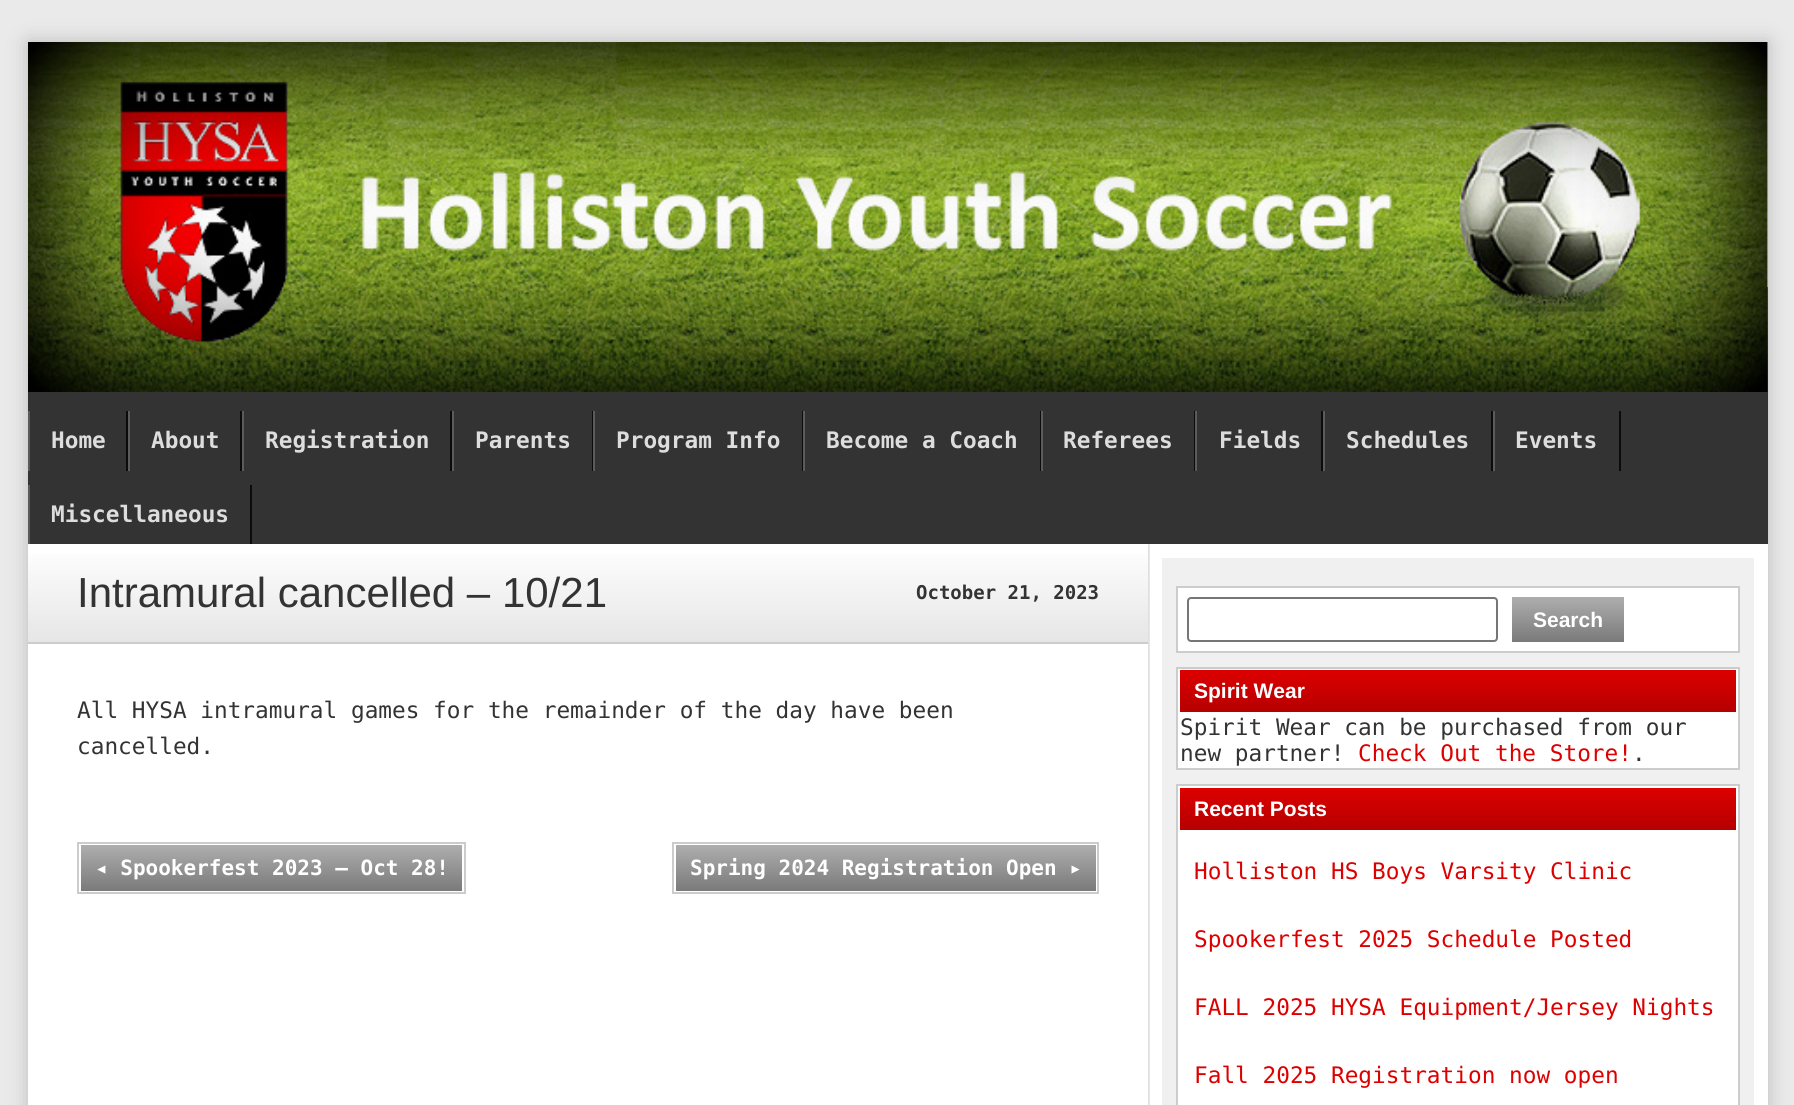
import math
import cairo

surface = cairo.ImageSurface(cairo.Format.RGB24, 1794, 1105)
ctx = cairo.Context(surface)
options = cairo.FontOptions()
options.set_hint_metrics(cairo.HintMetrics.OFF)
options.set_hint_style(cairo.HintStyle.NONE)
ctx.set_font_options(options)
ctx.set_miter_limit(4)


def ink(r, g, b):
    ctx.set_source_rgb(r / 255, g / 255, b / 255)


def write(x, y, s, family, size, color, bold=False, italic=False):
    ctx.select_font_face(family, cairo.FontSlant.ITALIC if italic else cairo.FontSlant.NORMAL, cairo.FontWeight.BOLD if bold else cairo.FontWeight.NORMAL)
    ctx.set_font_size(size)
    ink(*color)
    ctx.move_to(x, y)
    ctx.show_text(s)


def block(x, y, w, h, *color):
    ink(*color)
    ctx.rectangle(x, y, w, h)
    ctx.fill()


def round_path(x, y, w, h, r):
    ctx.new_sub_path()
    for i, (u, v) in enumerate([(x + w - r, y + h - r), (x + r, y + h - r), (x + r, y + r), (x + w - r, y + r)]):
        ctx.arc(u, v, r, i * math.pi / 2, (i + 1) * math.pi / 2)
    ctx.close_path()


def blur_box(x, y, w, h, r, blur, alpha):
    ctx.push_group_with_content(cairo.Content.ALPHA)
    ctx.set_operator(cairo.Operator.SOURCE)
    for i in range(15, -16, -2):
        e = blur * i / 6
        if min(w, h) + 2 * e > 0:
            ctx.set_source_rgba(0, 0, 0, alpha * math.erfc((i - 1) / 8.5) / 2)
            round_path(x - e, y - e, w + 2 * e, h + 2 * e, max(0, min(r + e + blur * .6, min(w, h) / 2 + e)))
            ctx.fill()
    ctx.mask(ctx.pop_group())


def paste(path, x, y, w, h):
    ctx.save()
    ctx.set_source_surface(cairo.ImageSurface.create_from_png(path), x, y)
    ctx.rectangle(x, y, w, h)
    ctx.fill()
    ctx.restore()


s1 = dict(family="DejaVu Sans Mono", size=22.75, color=(221, 221, 221), bold=True)
s2 = dict(family="Liberation Sans", size=42, color=(51, 51, 51))
s3 = dict(family="DejaVu Sans Mono", size=19, color=(51, 51, 51), bold=True)
s4 = dict(family="DejaVu Sans Mono", size=22.75, color=(51, 51, 51))
s5 = dict(family="DejaVu Sans Mono", size=21, color=(255, 255, 255), bold=True)
s6 = dict(family="Liberation Sans", size=21, color=(255, 255, 255), bold=True)
s7 = dict(family="DejaVu Sans Mono", size=22.75, color=(221, 0, 0))

ink(234, 234, 234)
ctx.paint()
ink(0, 0, 0)
blur_box(28, 42, 1740, 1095, 0, 10.5, 0.2)
block(28, 544, 1740, 561, 255, 255, 255)
block(1767, 42, 1, 245, 240, 240, 240)
gradient = cairo.LinearGradient(28, 287, 28, 544)
gradient.add_color_stop_rgba(0, 0.357, 0.357, 0.357, 1)
gradient.add_color_stop_rgba(0.3, 0.2, 0.2, 0.2, 1)
ctx.set_source(gradient)
ctx.rectangle(28, 287, 1740, 257)
ctx.fill()
paste("pic1.png", 28, 42, 1740, 350)
block(126, 411, 2, 60, 11, 11, 11)
block(28, 411, 2, 60, 91, 91, 91)
write(51, 448, "Home", **s1)
block(240, 411, 2, 60, 11, 11, 11)
block(128, 411, 2, 60, 91, 91, 91)
write(151, 448, "About", **s1)
block(450, 411, 2, 60, 11, 11, 11)
block(242, 411, 2, 60, 91, 91, 91)
write(265, 448, "Registration", **s1)
block(592, 411, 1, 60, 11, 11, 11)
block(452, 411, 2, 60, 91, 91, 91)
write(475, 448, "Parents", **s1)
block(802, 411, 1, 60, 11, 11, 11)
block(593, 411, 2, 60, 91, 91, 91)
write(616, 448, "Program Info", **s1)
block(1040, 411, 1, 60, 11, 11, 11)
block(803, 411, 2, 60, 91, 91, 91)
write(826, 448, "Become a Coach", **s1)
block(1194, 411, 1, 60, 11, 11, 11)
block(1041, 411, 2, 60, 91, 91, 91)
write(1063, 448, "Referees", **s1)
block(1321, 411, 2, 60, 11, 11, 11)
block(1195, 411, 2, 60, 91, 91, 91)
write(1219, 448, "Fields", **s1)
block(1491, 411, 2, 60, 11, 11, 11)
block(1323, 411, 2, 60, 91, 91, 91)
write(1346, 448, "Schedules", **s1)
block(1619, 411, 2, 60, 11, 11, 11)
block(1493, 411, 2, 60, 91, 91, 91)
write(1515, 448, "Events", **s1)
block(250, 485, 2, 59, 11, 11, 11)
block(28, 485, 2, 59, 91, 91, 91)
write(51, 522, "Miscellaneous", **s1)
paste("pic2.png", 1148, 544, 2, 561)
gradient = cairo.LinearGradient(28, 544, 28, 642)
gradient.add_color_stop_rgba(0, 1, 1, 1, 1)
gradient.add_color_stop_rgba(1, 0.902, 0.902, 0.902, 1)
ctx.set_source(gradient)
ctx.rectangle(28, 554, 1120, 88)
ctx.fill()
block(28, 642, 1120, 2, 204, 204, 204)
write(77, 607, "Intramural cancelled – 10/21", **s2)
write(916, 599, "October 21, 2023", **s3)
write(77, 718, "All HYSA intramural games for the remainder of the day have been", **s4)
write(77, 754, "cancelled.", **s4)
ctx.rectangle(78, 843, 387, 50)
ink(204, 204, 204)
ctx.stroke()
gradient = cairo.LinearGradient(81, 845, 81, 891)
gradient.add_color_stop_rgba(0, 0.682, 0.682, 0.682, 1)
gradient.add_color_stop_rgba(1, 0.478, 0.478, 0.478, 1)
ctx.set_source(gradient)
ctx.rectangle(81, 845, 381, 46)
ctx.fill()
write(95, 875, "◂ Spookerfest 2023 – Oct 28!", **s5)
ctx.rectangle(673, 843, 425, 50)
ink(204, 204, 204)
ctx.stroke()
gradient = cairo.LinearGradient(676, 845, 676, 891)
gradient.add_color_stop_rgba(0, 0.682, 0.682, 0.682, 1)
gradient.add_color_stop_rgba(1, 0.478, 0.478, 0.478, 1)
ctx.set_source(gradient)
ctx.rectangle(676, 845, 420, 46)
ctx.fill()
write(690, 875, "Spring 2024 Registration Open ▸", **s5)
block(1162, 558, 592, 547, 240, 240, 240)
ink(255, 255, 255)
ctx.rectangle(1177, 587, 562, 65)
ctx.fill_preserve()
ink(204, 204, 204)
ctx.stroke()
round_path(1188, 598, 309, 43, 3)
ink(118, 118, 118)
ctx.stroke()
gradient = cairo.LinearGradient(1512, 597, 1512, 642)
gradient.add_color_stop_rgba(0, 0.682, 0.682, 0.682, 1)
gradient.add_color_stop_rgba(1, 0.478, 0.478, 0.478, 1)
ctx.set_source(gradient)
ctx.rectangle(1512, 597, 112, 45)
ctx.fill()
write(1533, 627, "Search", **s6)
ctx.rectangle(1177, 668, 562, 101)
ctx.fill_preserve()
ink(204, 204, 204)
ctx.stroke()
gradient = cairo.LinearGradient(1180, 670, 1180, 712)
gradient.add_color_stop_rgba(0, 0.867, 0, 0, 1)
gradient.add_color_stop_rgba(1, 0.71, 0, 0, 1)
ctx.set_source(gradient)
ctx.rectangle(1180, 670, 556, 42)
ctx.fill()
write(1194, 698, "Spirit Wear", **s6)
write(1180, 735, "Spirit Wear can be purchased from our", **s4)
write(1180, 761, "new partner!", **s4)
write(1358, 761, "Check Out the Store!", **s7)
write(1632, 761, ".", **s4)
ink(255, 255, 255)
ctx.rectangle(1177, 785, 562, 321)
ctx.fill_preserve()
ink(204, 204, 204)
ctx.stroke()
gradient = cairo.LinearGradient(1180, 788, 1180, 830)
gradient.add_color_stop_rgba(0, 0.867, 0, 0, 1)
gradient.add_color_stop_rgba(1, 0.71, 0, 0, 1)
ctx.set_source(gradient)
ctx.rectangle(1180, 788, 556, 42)
ctx.fill()
write(1194, 816, "Recent Posts", **s6)
write(1194, 879, "Holliston HS Boys Varsity Clinic", **s7)
write(1194, 947, "Spookerfest 2025 Schedule Posted", **s7)
write(1194, 1015, "FALL 2025 HYSA Equipment/Jersey Nights", **s7)
write(1194, 1083, "Fall 2025 Registration now open", **s7)
surface.write_to_png("screenshot.png")
